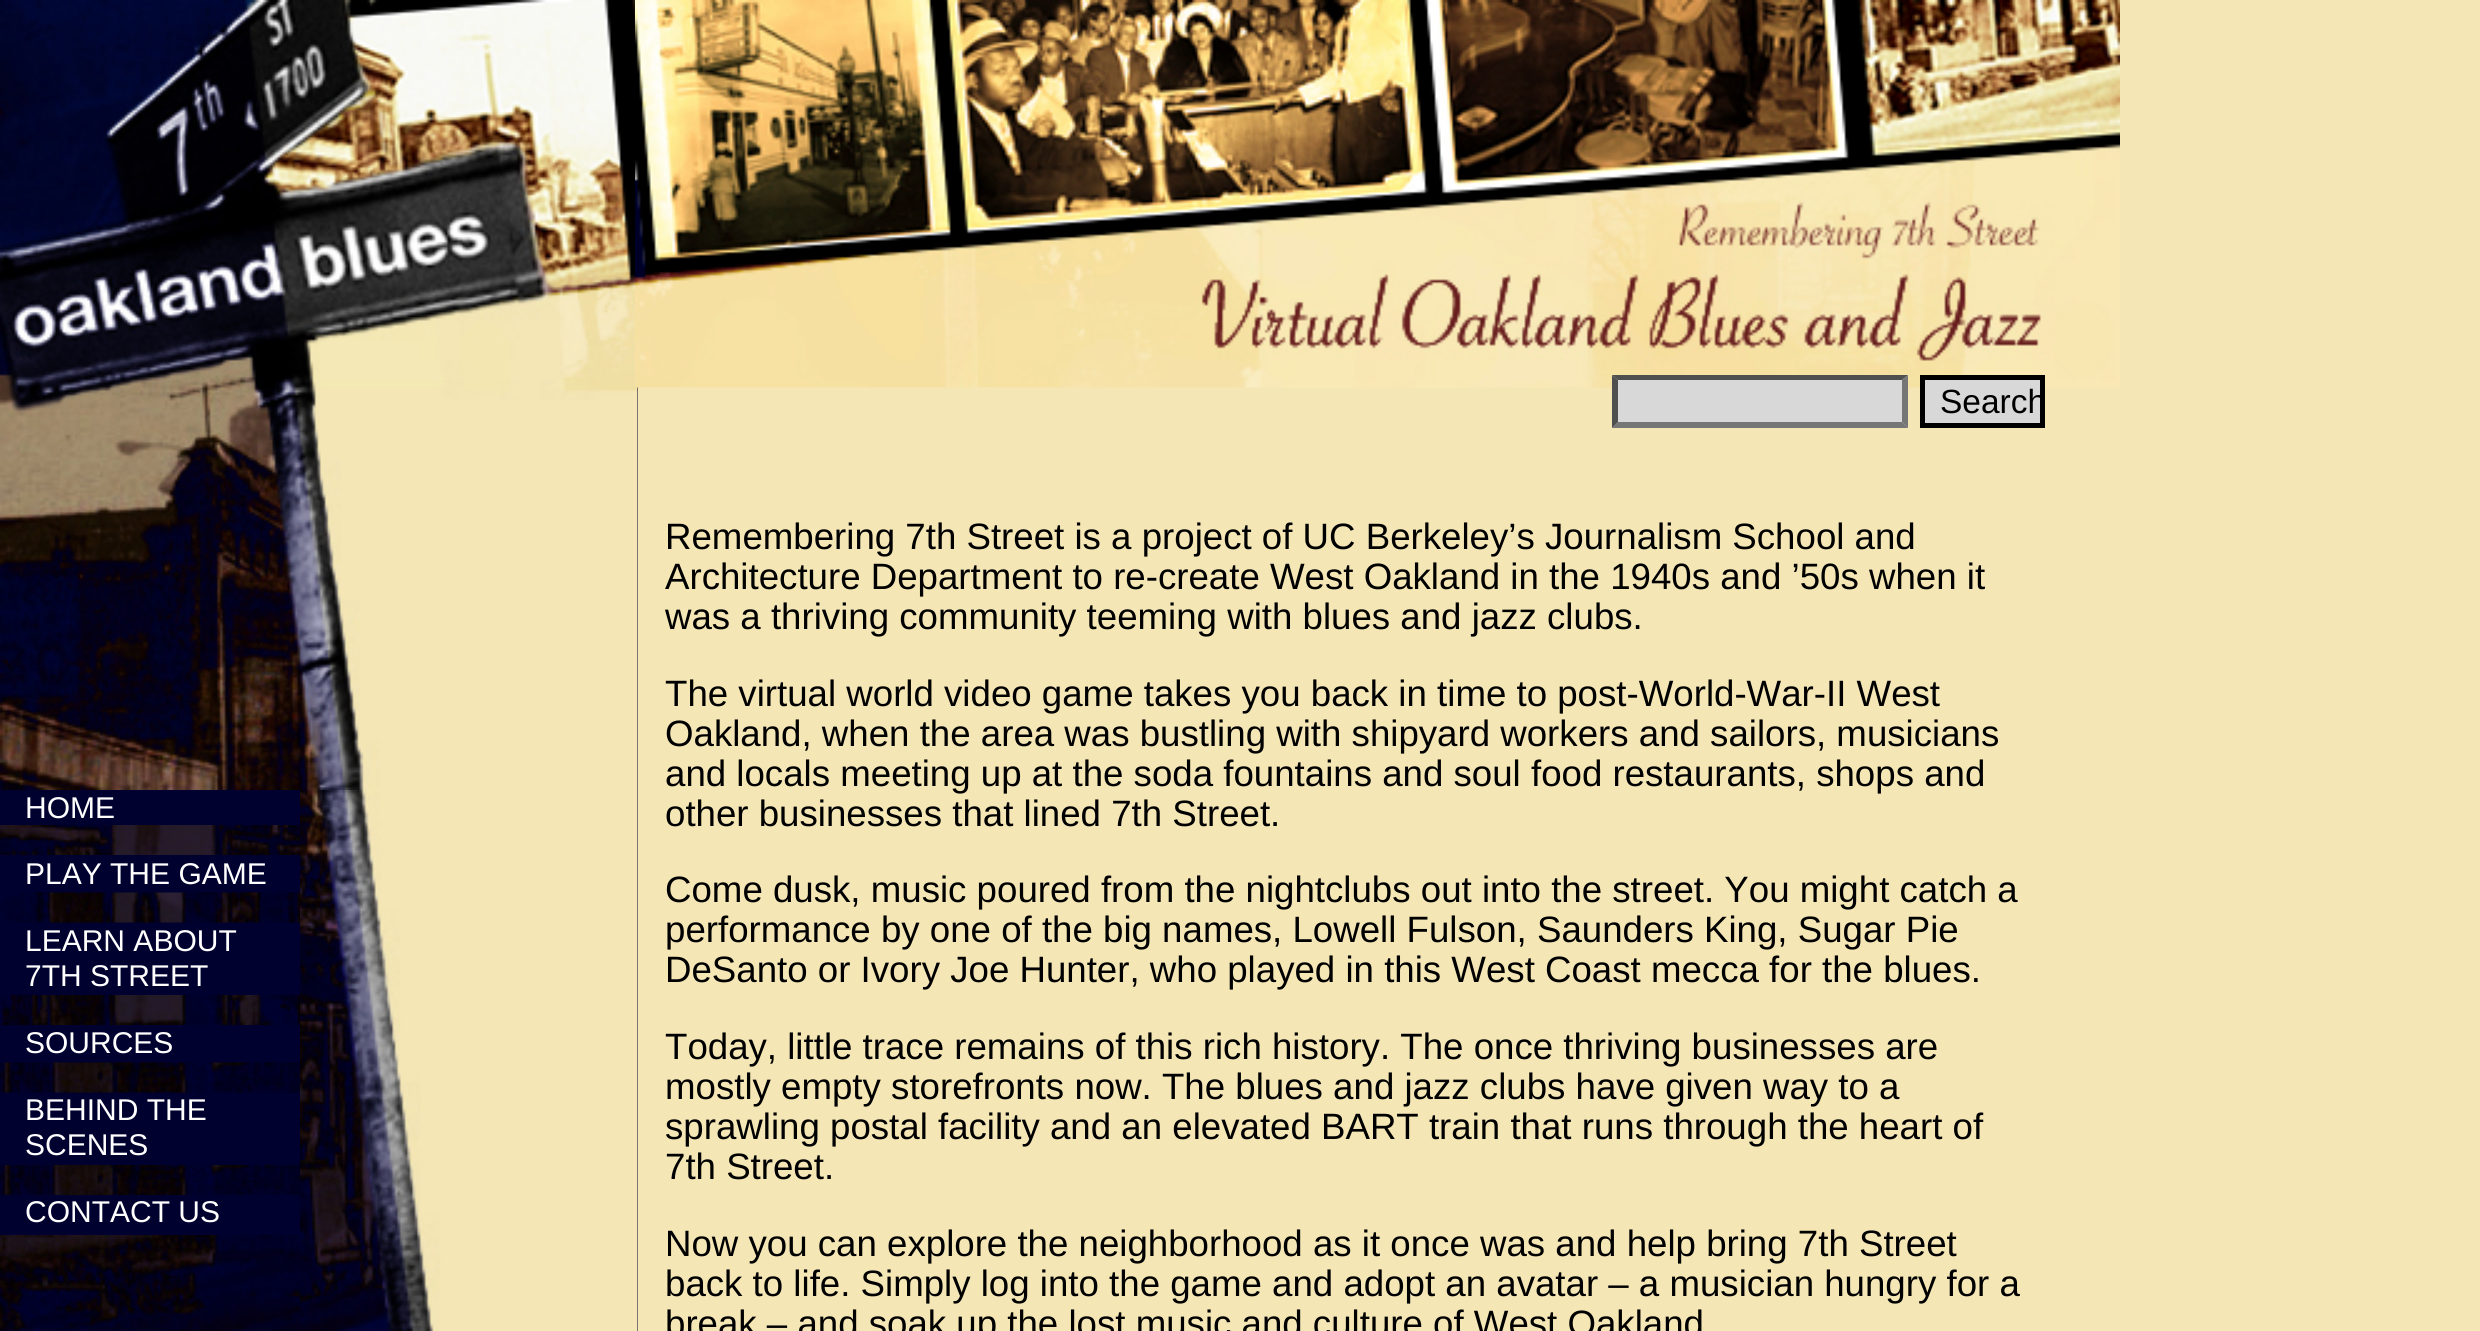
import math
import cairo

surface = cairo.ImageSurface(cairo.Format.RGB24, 2480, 1331)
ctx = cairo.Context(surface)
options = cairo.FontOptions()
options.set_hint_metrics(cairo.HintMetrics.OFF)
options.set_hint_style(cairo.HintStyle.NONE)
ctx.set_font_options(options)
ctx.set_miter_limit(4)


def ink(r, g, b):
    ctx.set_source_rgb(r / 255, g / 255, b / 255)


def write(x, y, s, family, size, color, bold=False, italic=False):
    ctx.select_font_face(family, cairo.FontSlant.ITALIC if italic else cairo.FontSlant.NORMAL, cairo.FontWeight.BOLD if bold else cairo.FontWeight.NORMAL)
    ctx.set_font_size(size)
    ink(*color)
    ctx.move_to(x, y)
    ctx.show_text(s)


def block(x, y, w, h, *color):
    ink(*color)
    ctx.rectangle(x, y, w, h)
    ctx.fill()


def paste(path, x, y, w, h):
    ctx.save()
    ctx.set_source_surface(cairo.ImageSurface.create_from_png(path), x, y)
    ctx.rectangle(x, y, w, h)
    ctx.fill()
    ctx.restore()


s1 = dict(family="Liberation Sans", size=33.5, color=(0, 0, 0))
s2 = dict(family="Liberation Sans", size=30, color=(255, 255, 255))
s3 = dict(family="Liberation Sans", size=36.65, color=(0, 0, 0))

ink(244, 230, 181)
ctx.paint()
block(637, 387, 1, 944, 0, 1, 47)
paste("pic2.png", 0, 0, 638, 790)
paste("pic1.png", 635, 0, 1485, 388)
block(1613, 375, 295, 53, 216, 216, 216)
ink(79, 79, 79)
ctx.new_path()
ctx.move_to(1612, 375)
ctx.line_to(1908, 375)
ctx.line_to(1902, 380)
ctx.line_to(1618, 380)
ctx.close_path()
ctx.fill()
ink(118, 118, 118)
ctx.new_path()
ctx.move_to(1908, 375)
ctx.line_to(1908, 428)
ctx.line_to(1902, 422)
ctx.line_to(1902, 380)
ctx.close_path()
ctx.fill()
ctx.new_path()
ctx.move_to(1908, 428)
ctx.line_to(1612, 428)
ctx.line_to(1618, 422)
ctx.line_to(1902, 422)
ctx.close_path()
ctx.fill()
ink(79, 79, 79)
ctx.new_path()
ctx.move_to(1612, 428)
ctx.line_to(1612, 375)
ctx.line_to(1618, 380)
ctx.line_to(1618, 422)
ctx.close_path()
ctx.fill()
ink(216, 216, 216)
ctx.rectangle(1922.5, 377.5, 120, 48)
ctx.fill_preserve()
ink(0, 0, 0)
ctx.set_line_width(5)
ctx.stroke()
ctx.save()
ctx.rectangle(1925, 380, 115, 43)
ctx.clip()
write(1940, 413, "Search", **s1)
ctx.restore()
block(0, 790, 300, 35, 0, 1, 47)
write(25, 818, "HOME", **s2)
paste("pic3.png", 300, 790, 338, 541)
block(0, 855, 300, 38, 0, 1, 47)
paste("pic4.png", 0, 825, 300, 30)
write(25, 884, "PLAY THE GAME", **s2)
block(0, 922, 300, 73, 0, 1, 47)
paste("pic5.png", 0, 892, 300, 31)
write(25, 951, "LEARN ABOUT", **s2)
write(25, 986, "7TH STREET", **s2)
paste("pic6.png", 0, 995, 300, 30)
block(0, 1025, 300, 38, 0, 1, 47)
write(25, 1053, "SOURCES", **s2)
block(0, 1092, 300, 73, 0, 1, 47)
paste("pic7.png", 0, 1062, 300, 31)
write(25, 1120, "BEHIND THE", **s2)
write(25, 1155, "SCENES", **s2)
paste("pic8.png", 0, 1165, 300, 30)
block(0, 1195, 300, 40, 0, 1, 47)
write(25, 1222, "CONTACT US", **s2)
paste("pic9.png", 0, 1235, 300, 96)
write(665, 549, "Remembering 7th Street is a project of UC Berkeley’s Journalism School and", **s3)
write(665, 589, "Architecture Department to re-create West Oakland in the 1940s and ’50s when it", **s3)
write(665, 629, "was a thriving community teeming with blues and jazz clubs.", **s3)
write(665, 706, "The virtual world video game takes you back in time to post-World-War-II West", **s3)
write(665, 746, "Oakland, when the area was bustling with shipyard workers and sailors, musicians", **s3)
write(665, 786, "and locals meeting up at the soda fountains and soul food restaurants, shops and", **s3)
write(665, 826, "other businesses that lined 7th Street.", **s3)
write(665, 902, "Come dusk, music poured from the nightclubs out into the street. You might catch a", **s3)
write(665, 942, "performance by one of the big names, Lowell Fulson, Saunders King, Sugar Pie", **s3)
write(665, 982, "DeSanto or Ivory Joe Hunter, who played in this West Coast mecca for the blues.", **s3)
write(665, 1059, "Today, little trace remains of this rich history. The once thriving businesses are", **s3)
write(665, 1099, "mostly empty storefronts now. The blues and jazz clubs have given way to a", **s3)
write(665, 1139, "sprawling postal facility and an elevated BART train that runs through the heart of", **s3)
write(665, 1179, "7th Street.", **s3)
write(665, 1256, "Now you can explore the neighborhood as it once was and help bring 7th Street", **s3)
write(665, 1296, "back to life. Simply log into the game and adopt an avatar – a musician hungry for a", **s3)
write(665, 1336, "break – and soak up the lost music and culture of West Oakland", **s3)
surface.write_to_png("screenshot.png")
